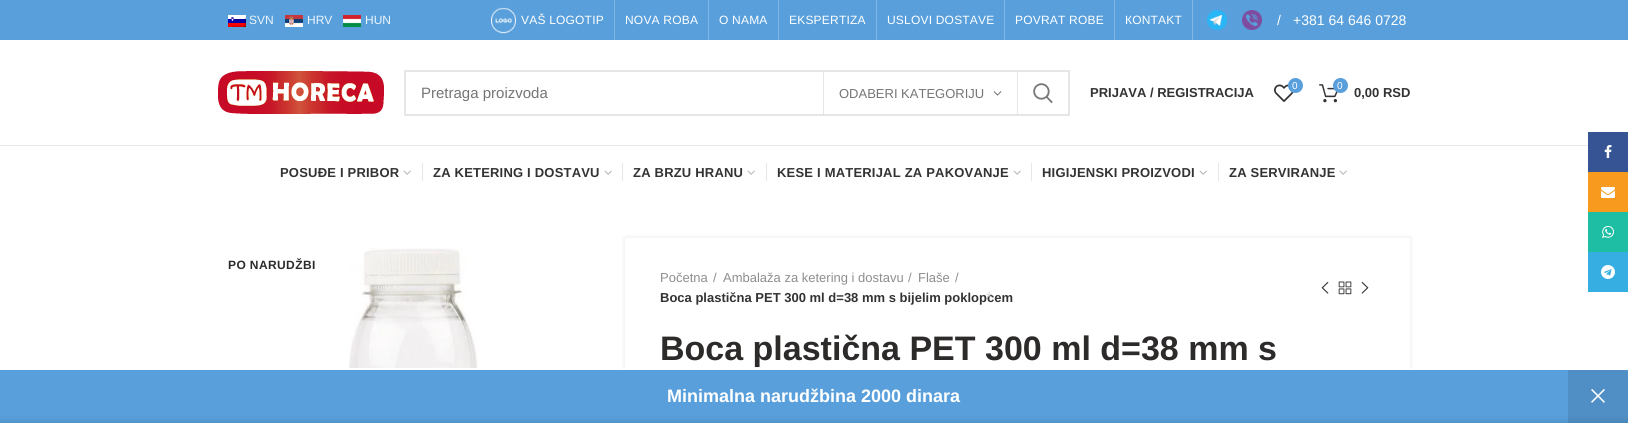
import math
import cairo

surface = cairo.ImageSurface(cairo.Format.RGB24, 1628, 423)
ctx = cairo.Context(surface)
options = cairo.FontOptions()
options.set_hint_metrics(cairo.HintMetrics.OFF)
options.set_hint_style(cairo.HintStyle.NONE)
ctx.set_font_options(options)
ctx.set_miter_limit(4)


def ink(r, g, b):
    ctx.set_source_rgb(r / 255, g / 255, b / 255)


def write(x, y, s, family, size, color, bold=False, italic=False):
    ctx.select_font_face(family, cairo.FontSlant.ITALIC if italic else cairo.FontSlant.NORMAL, cairo.FontWeight.BOLD if bold else cairo.FontWeight.NORMAL)
    ctx.set_font_size(size)
    ink(*color)
    ctx.move_to(x, y)
    ctx.show_text(s)


def write_spaced(x, y, s, letter, word):
    ctx.move_to(x, y)
    for ch in s:
        ctx.show_text(ch)
        ctx.rel_move_to(letter + word * (ch == ' '), 0)


def block(x, y, w, h, *color):
    ink(*color)
    ctx.rectangle(x, y, w, h)
    ctx.fill()


def round_path(x, y, w, h, r):
    ctx.new_sub_path()
    for i, (u, v) in enumerate([(x + w - r, y + h - r), (x + r, y + h - r), (x + r, y + r), (x + w - r, y + r)]):
        ctx.arc(u, v, r, i * math.pi / 2, (i + 1) * math.pi / 2)
    ctx.close_path()


def blur_box(x, y, w, h, r, blur, alpha):
    ctx.push_group_with_content(cairo.Content.ALPHA)
    ctx.set_operator(cairo.Operator.SOURCE)
    for i in range(15, -16, -2):
        e = blur * i / 6
        if min(w, h) + 2 * e > 0:
            ctx.set_source_rgba(0, 0, 0, alpha * math.erfc((i - 1) / 8.5) / 2)
            round_path(x - e, y - e, w + 2 * e, h + 2 * e, max(0, min(r + e + blur * .6, min(w, h) / 2 + e)))
            ctx.fill()
    ctx.mask(ctx.pop_group())


def paste(path, x, y, w, h):
    ctx.save()
    ctx.set_source_surface(cairo.ImageSurface.create_from_png(path), x, y)
    ctx.rectangle(x, y, w, h)
    ctx.fill()
    ctx.restore()


s1 = dict(family="Liberation Sans", size=12, color=(238, 245, 251))
s2 = dict(family="Liberation Sans", size=14, color=(255, 255, 255))
s3 = dict(family="Liberation Sans", size=15, color=(117, 117, 117))
s4 = dict(family="Liberation Sans", size=13, color=(117, 117, 117))
s5 = dict(family="Liberation Sans", size=13, color=(51, 51, 51), bold=True)
s6 = dict(family="Liberation Sans", size=16, color=(214, 214, 214))
s7 = dict(family="Liberation Sans", size=10, color=(255, 255, 255))
s8 = dict(family="Liberation Sans", size=13, color=(142, 142, 142))
s9 = dict(family="Liberation Sans", size=34, color=(45, 42, 42), bold=True)
s10 = dict(family="Liberation Sans", size=18, color=(255, 255, 255), bold=True)

ink(255, 255, 255)
ctx.paint()
block(0, 0, 1628, 40, 88, 159, 219)
paste("pic1.png", 228, 15, 18, 12)
write(249, 24, "SVN", **s1)
paste("pic2.png", 285, 15, 18, 12)
write(307, 24, "HRV", **s1)
paste("pic3.png", 343, 15, 18, 12)
write(365, 24, "HUN", **s1)
paste("pic4.png", 491, 7, 25, 27)
ink(255, 255, 255)
write_spaced(521, 24, "VAŠ LOGOTIP", 0.2, 0)
block(614, 0, 1, 40, 130, 183, 228)
ink(255, 255, 255)
write_spaced(625, 24, "NOVA ROBA", 0.2, 0)
block(708, 0, 1, 40, 130, 183, 228)
ink(255, 255, 255)
write_spaced(719, 24, "O NAMA", 0.2, 0)
block(778, 0, 1, 40, 130, 183, 228)
ink(255, 255, 255)
write_spaced(789, 24, "EKSPERTIZA", 0.2, 0)
block(876, 0, 1, 40, 130, 183, 228)
ink(255, 255, 255)
write_spaced(887, 24, "USLOVI DOSTAVE", 0.2, 0)
block(1004, 0, 1, 40, 130, 183, 228)
ink(255, 255, 255)
write_spaced(1015, 24, "PОVRAT RОBE", 0.2, 0)
block(1114, 0, 1, 40, 130, 183, 228)
ink(255, 255, 255)
write_spaced(1125, 24, "КОNTAKT", 0.2, 0)
block(1192, 0, 1, 40, 130, 183, 228)
paste("pic5.png", 1207, 10, 20, 20)
paste("pic6.png", 1242, 10, 20, 20)
write(1277, 25, "/", **s2)
write(1293, 25, "+381 64 646 0728", **s2)
block(0, 145, 1588, 1, 232, 232, 232)
paste("pic7.png", 218, 71, 166, 43)
ctx.rectangle(405, 71, 664, 44)
ink(230, 230, 230)
ctx.stroke()
write(421, 98, "Pretraga proizvoda", **s3)
block(1017, 72, 1, 42, 230, 230, 230)
block(823, 72, 1, 42, 230, 230, 230)
write(839, 98, "ODABERI KATEGORIJU", **s4)
paste("pic8.png", 993, 91, 9, 5)
paste("pic9.png", 1033, 83, 20, 21)
write(1090, 97, "PRIJAVA / REGISTRACIJA", **s5)
ctx.save()
ctx.set_fill_rule(cairo.FillRule.EVEN_ODD)
ctx.new_path()
ctx.move_to(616, 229)
ctx.line_to(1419, 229)
ctx.line_to(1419, 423)
ctx.line_to(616, 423)
ctx.close_path()
ctx.move_to(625, 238)
ctx.line_to(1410, 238)
ctx.line_to(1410, 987)
ctx.line_to(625, 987)
ctx.close_path()
ctx.clip()
ink(0, 0, 0)
blur_box(625, 238, 785, 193, 0, 2.5, 0.1)
ctx.restore()
write(660, 302, "Boca plastična PET 300 ml d=38 mm s bijelim poklopcem", **s5)
write(986, 303, "*", **s6)
paste("pic10.png", 1274, 84, 20, 18)
ink(88, 159, 219)
ctx.arc(1295.5, 85.5, 7.5, 0, 2 * math.pi)
ctx.fill()
write(1292, 89, "0", **s7)
paste("pic11.png", 1319, 84, 19, 19)
ink(88, 159, 219)
ctx.arc(1340.5, 85.5, 7.5, 0, 2 * math.pi)
ctx.fill()
write(1337, 89, "0", **s7)
write(1354, 97, "0,00 RSD", **s5)
write_spaced(280, 177, "POSUĐE I PRIBOR", 0.2, 0)
paste("pic12.png", 403, 170, 8, 5)
block(422, 163, 1, 18, 230, 230, 230)
ink(51, 51, 51)
write_spaced(433, 177, "ZA KETERING I DOSTAVU", 0.2, 0)
paste("pic12.png", 604, 170, 8, 5)
block(622, 163, 1, 18, 230, 230, 230)
ink(51, 51, 51)
write_spaced(633, 177, "ZA BRZU HRANU", 0.2, 0)
paste("pic12.png", 747, 170, 8, 5)
block(766, 163, 1, 18, 230, 230, 230)
ink(51, 51, 51)
write_spaced(777, 177, "KESE I MATERIJAL ZA PAKOVANJE", 0.2, 0)
paste("pic12.png", 1013, 170, 8, 5)
block(1031, 163, 1, 18, 230, 230, 230)
ink(51, 51, 51)
write_spaced(1042, 177, "HIGIJENSKI PROIZVODI", 0.2, 0)
paste("pic12.png", 1199, 170, 8, 5)
block(1218, 163, 1, 18, 230, 230, 230)
ink(51, 51, 51)
write_spaced(1229, 177, "ZA SERVIRANJE", 0.2, 0)
paste("pic12.png", 1339, 170, 8, 5)
ctx.set_font_size(12)
ink(45, 42, 42)
write_spaced(228, 269, "PO NARUDŽBI", 0.4, 0)
paste("pic13.png", 349, 248, 129, 120)
write(660, 282, "Početna", **s8)
write(713, 282, "/", **s8)
write(723, 282, "Ambalaža za ketering i dostavu", **s8)
write(908, 282, "/", **s8)
write(918, 282, "Flaše", **s8)
write(955, 282, "/", **s8)
paste("pic14.png", 1321, 281, 8, 13)
paste("pic15.png", 1338, 281, 14, 14)
paste("pic16.png", 1361, 281, 8, 13)
write(660, 360, "Boca plastična PET 300 ml d=38 mm s", **s9)
block(1588, 132, 40, 40, 54, 84, 147)
paste("pic17.png", 1604, 145, 8, 13)
block(1588, 172, 40, 40, 248, 154, 30)
paste("pic18.png", 1601, 187, 14, 11)
block(1588, 212, 40, 40, 30, 190, 165)
paste("pic19.png", 1602, 226, 12, 12)
block(1588, 252, 40, 40, 55, 174, 226)
paste("pic20.png", 1601, 265, 14, 14)
block(0, 370, 1568, 53, 88, 159, 219)
block(622, 368, 791, 2, 255, 255, 255)
write(667, 402, "Minimalna narudžbina 2000 dinara", **s10)
block(1568, 370, 60, 53, 79, 143, 197)
paste("pic21.png", 1591, 389, 14, 14)
ink(0, 0, 0)
blur_box(0, 423, 1628, 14, 0, 4.5, 0.14)
surface.write_to_png("screenshot.png")
